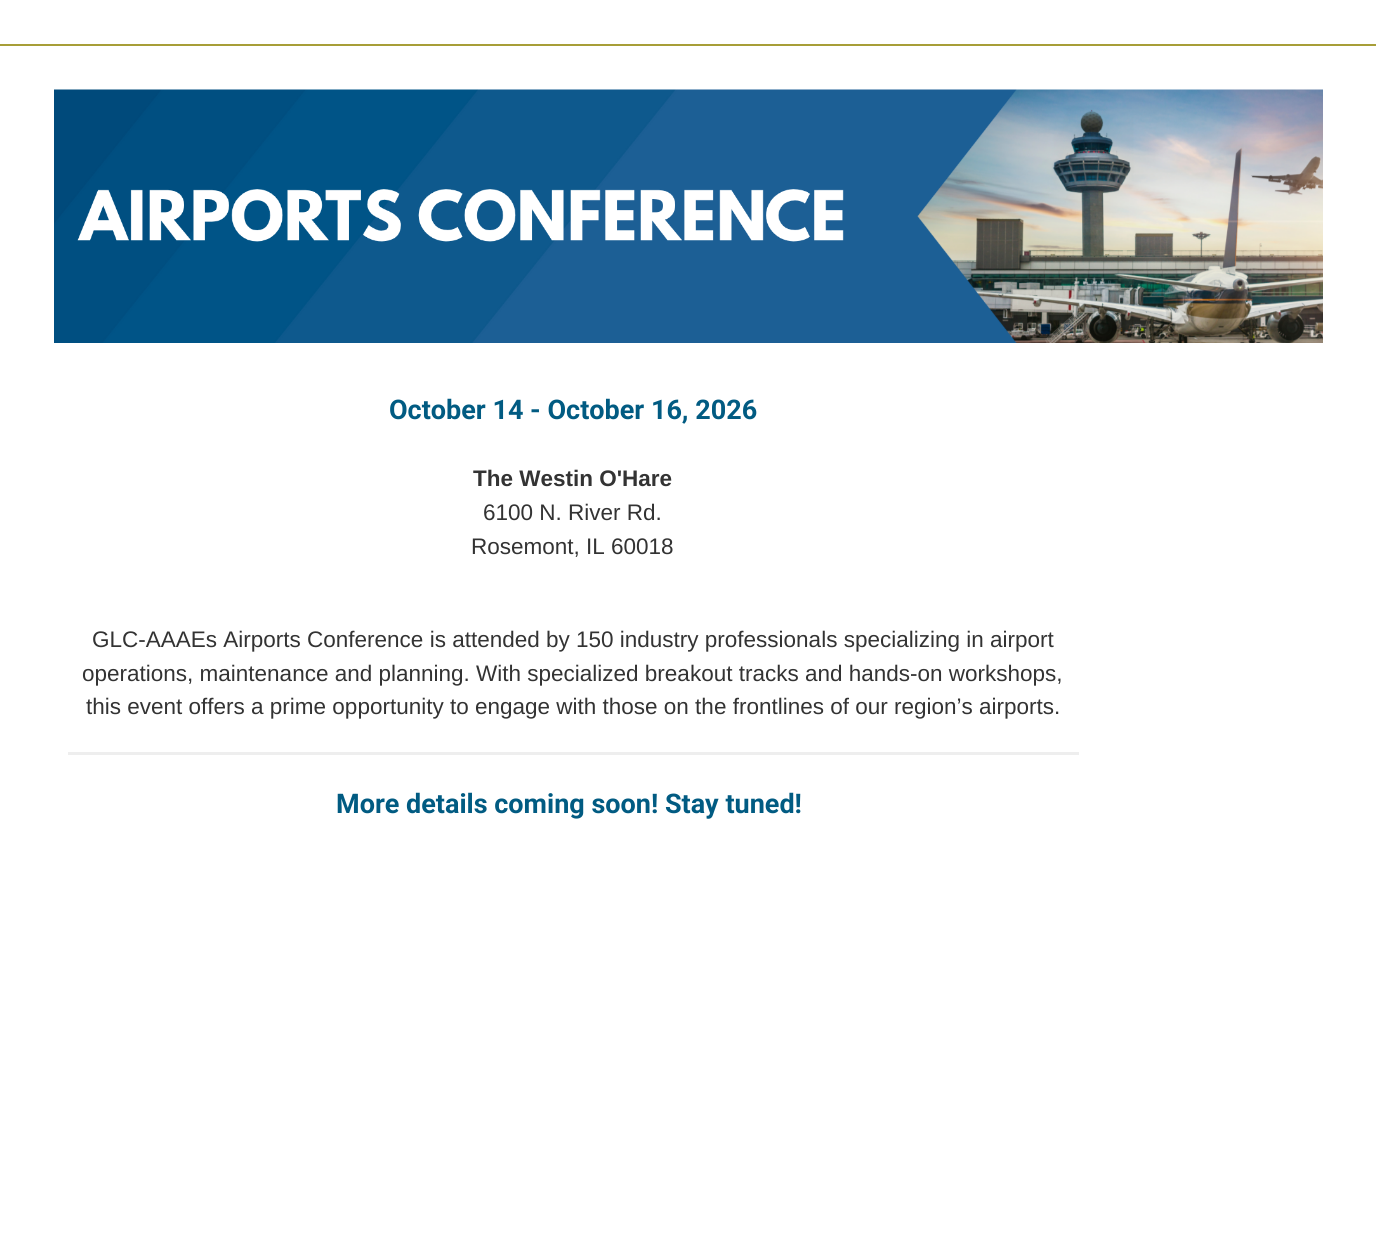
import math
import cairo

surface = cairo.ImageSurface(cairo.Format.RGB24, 1376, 1237)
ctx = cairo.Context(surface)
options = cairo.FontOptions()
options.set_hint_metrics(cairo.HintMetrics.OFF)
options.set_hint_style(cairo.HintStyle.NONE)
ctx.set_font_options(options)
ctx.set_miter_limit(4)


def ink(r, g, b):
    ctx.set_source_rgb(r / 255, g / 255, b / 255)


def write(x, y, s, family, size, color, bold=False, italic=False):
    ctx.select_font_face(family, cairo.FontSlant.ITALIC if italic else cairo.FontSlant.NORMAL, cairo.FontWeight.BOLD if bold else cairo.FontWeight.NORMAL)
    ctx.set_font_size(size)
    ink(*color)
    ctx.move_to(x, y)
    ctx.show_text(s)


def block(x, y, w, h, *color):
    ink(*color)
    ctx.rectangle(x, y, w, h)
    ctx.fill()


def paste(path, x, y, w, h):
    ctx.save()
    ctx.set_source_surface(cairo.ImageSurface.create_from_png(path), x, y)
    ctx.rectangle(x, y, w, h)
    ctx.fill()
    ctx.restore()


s1 = dict(family="Roboto", size=27, color=(1, 91, 130), bold=True)
s2 = dict(family="Liberation Sans", size=22.5, color=(51, 51, 51), bold=True)
s3 = dict(family="Liberation Sans", size=22.5, color=(51, 51, 51))

ink(255, 255, 255)
ctx.paint()
block(0, 44, 1376, 2, 167, 158, 56)
paste("pic1.png", 54, 89, 1269, 254)
write(389, 419, "October 14 - October 16, 2026", **s1)
write(473, 486, "The Westin O'Hare", **s2)
write(483, 520, "6100 N. River Rd.", **s3)
write(471, 554, "Rosemont, IL 60018", **s3)
write(92, 647, "GLC-AAAEs Airports Conference is attended by 150 industry professionals specializing in airport", **s3)
write(82, 681, "operations, maintenance and planning. With specialized breakout tracks and hands-on workshops,", **s3)
write(86, 714, "this event offers a prime opportunity to engage with those on the frontlines of our region’s airports.", **s3)
block(68, 752, 1011, 3, 238, 238, 238)
write(336, 813, "More details coming soon! Stay tuned!", **s1)
surface.write_to_png("screenshot.png")
